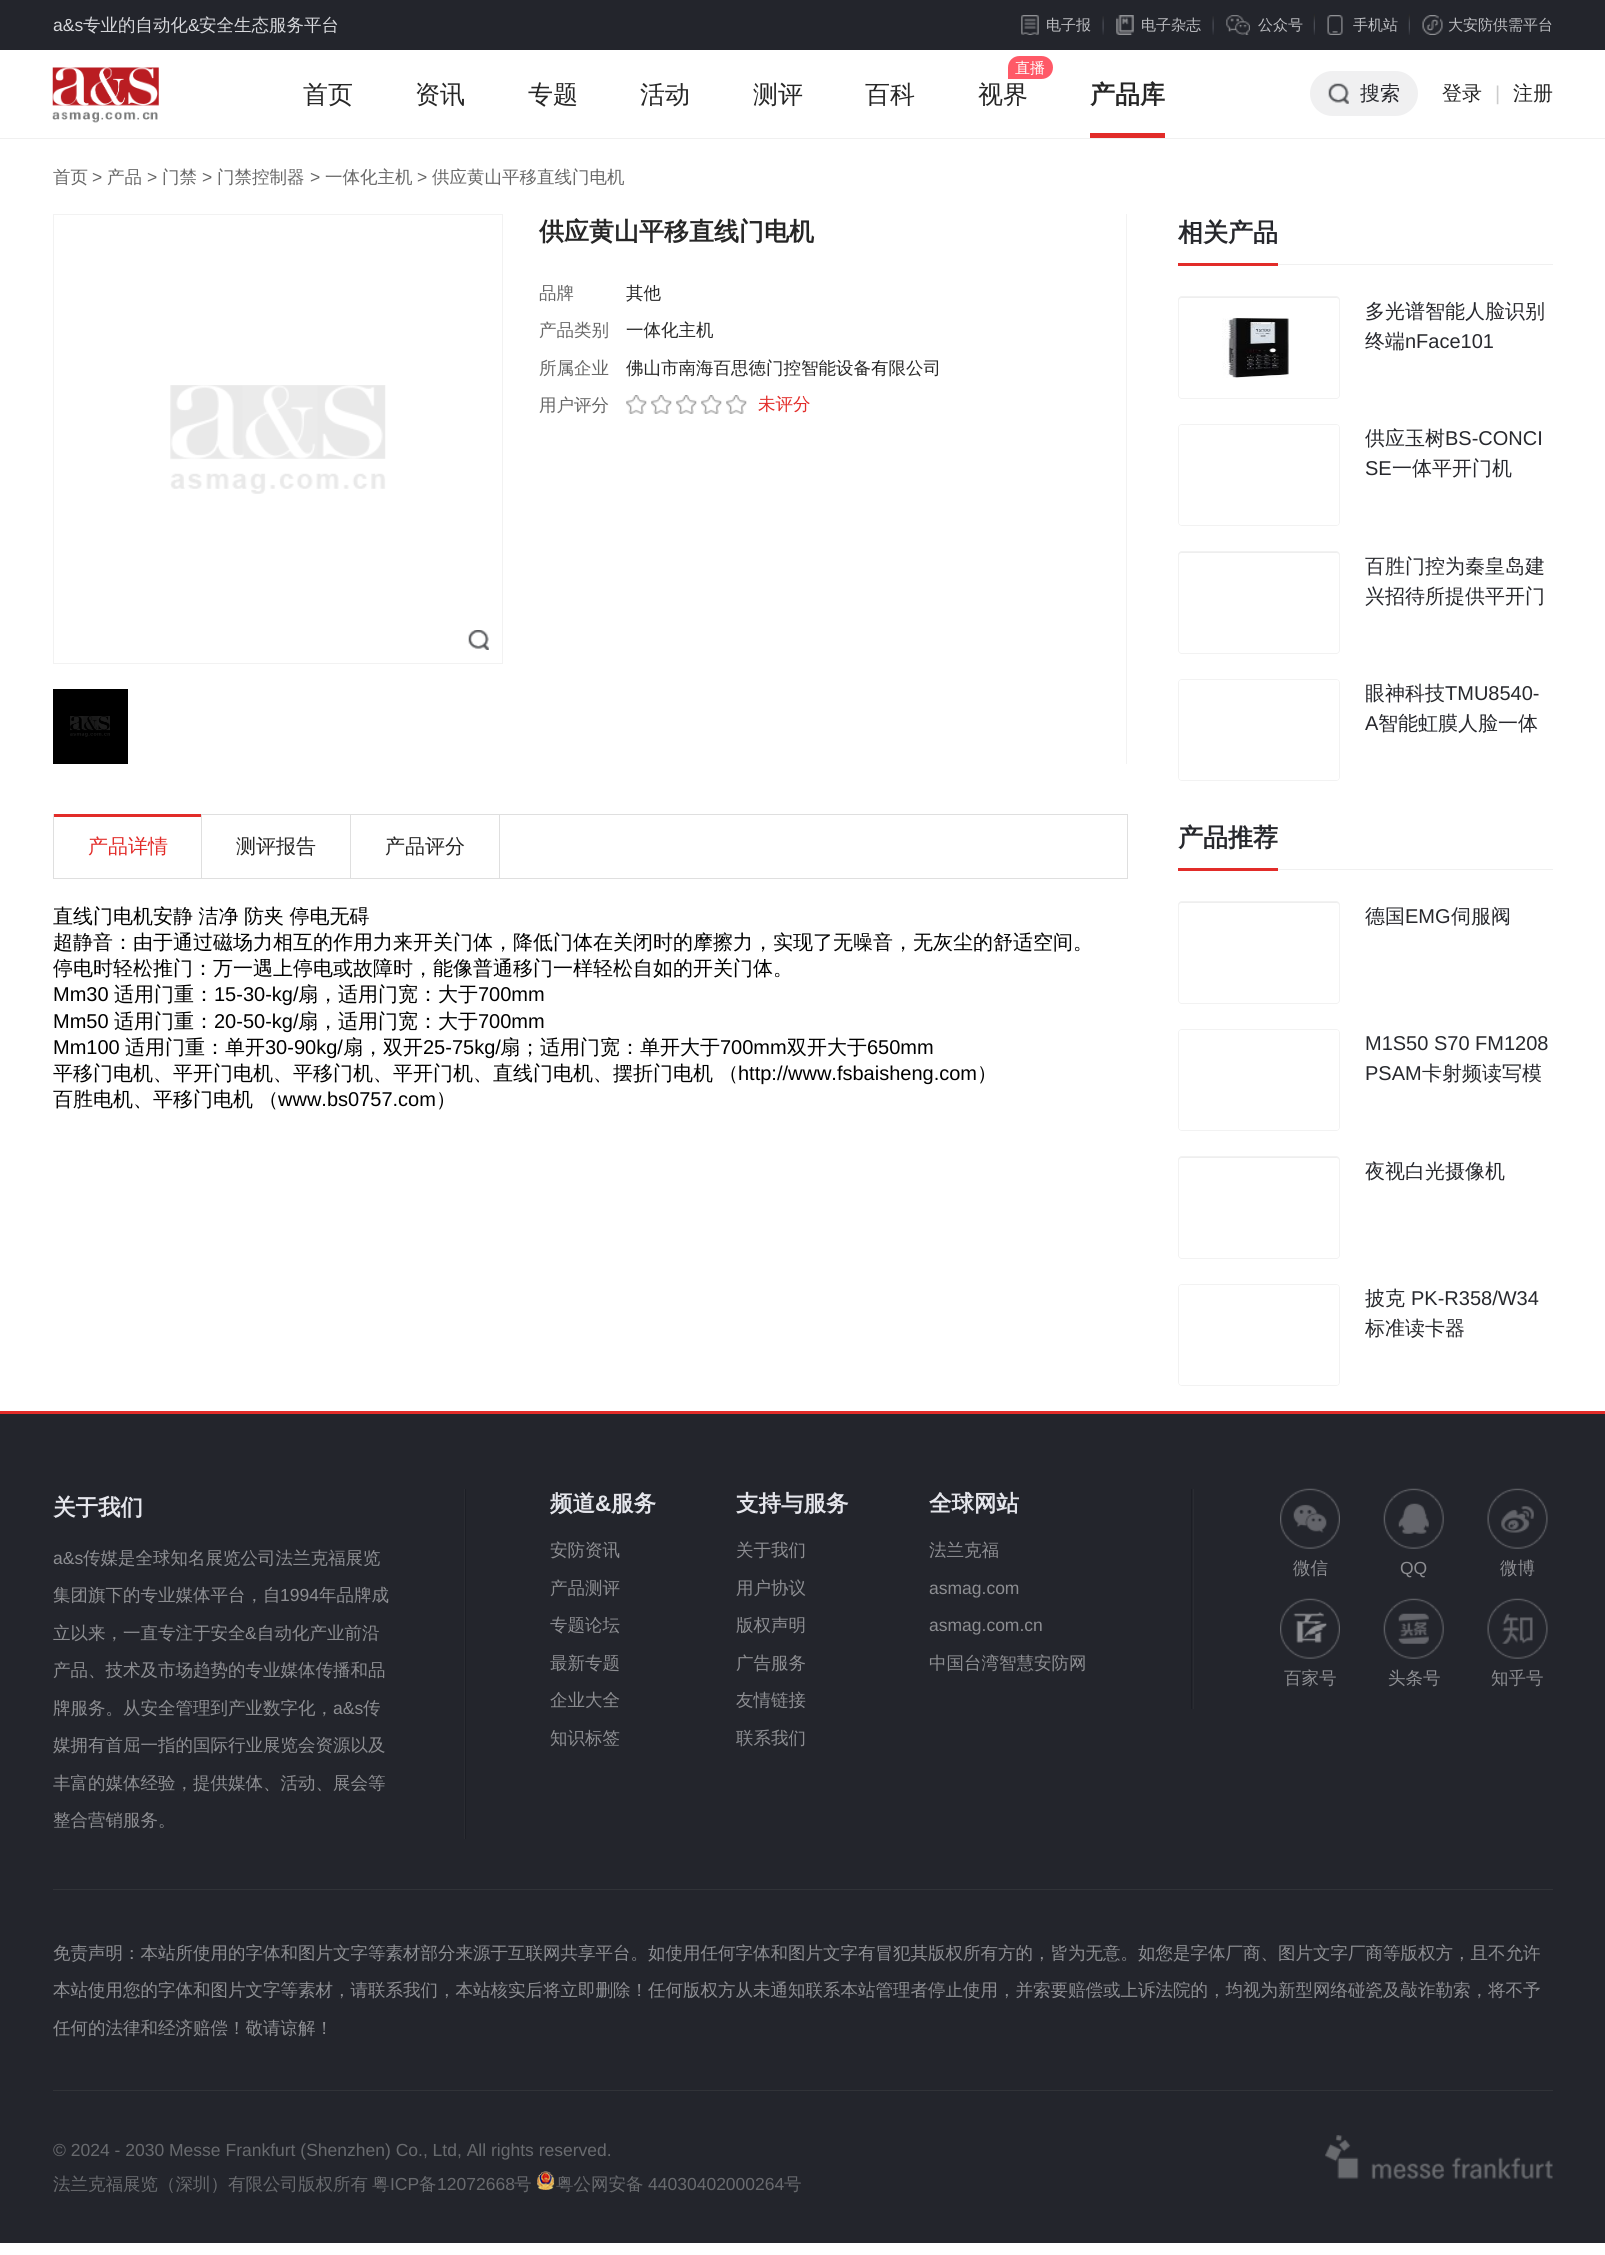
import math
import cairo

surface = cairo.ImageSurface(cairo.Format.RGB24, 1605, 2255)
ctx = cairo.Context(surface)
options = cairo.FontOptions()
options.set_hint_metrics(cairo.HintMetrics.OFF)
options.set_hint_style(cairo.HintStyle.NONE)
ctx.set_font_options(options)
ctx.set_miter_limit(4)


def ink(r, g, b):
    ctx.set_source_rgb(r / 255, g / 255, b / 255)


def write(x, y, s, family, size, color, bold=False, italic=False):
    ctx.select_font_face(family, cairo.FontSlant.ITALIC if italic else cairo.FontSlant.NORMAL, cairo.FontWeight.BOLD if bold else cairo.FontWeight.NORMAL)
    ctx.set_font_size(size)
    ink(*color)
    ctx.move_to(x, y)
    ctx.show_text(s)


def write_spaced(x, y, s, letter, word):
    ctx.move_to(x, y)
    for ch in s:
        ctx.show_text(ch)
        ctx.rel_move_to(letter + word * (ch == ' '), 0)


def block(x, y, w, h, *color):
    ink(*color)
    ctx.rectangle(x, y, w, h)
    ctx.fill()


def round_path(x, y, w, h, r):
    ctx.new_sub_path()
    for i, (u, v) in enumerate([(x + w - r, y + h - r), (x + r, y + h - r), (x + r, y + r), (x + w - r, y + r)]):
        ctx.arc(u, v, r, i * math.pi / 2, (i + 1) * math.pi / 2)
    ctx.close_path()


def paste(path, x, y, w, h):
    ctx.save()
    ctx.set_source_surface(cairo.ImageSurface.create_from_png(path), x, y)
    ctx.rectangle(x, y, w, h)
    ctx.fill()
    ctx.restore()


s1 = dict(family="Liberation Sans", size=17.5, color=(215, 216, 220))
s2 = dict(family="WenQuanYi Zen Hei Medium", size=17.5, color=(215, 216, 220))
s3 = dict(family="WenQuanYi Zen Hei Medium", size=15, color=(188, 189, 193))
s4 = dict(family="WenQuanYi Zen Hei Medium", size=25, color=(38, 38, 38))
s5 = dict(family="WenQuanYi Zen Hei Medium", size=15, color=(255, 255, 255))
s6 = dict(family="WenQuanYi Zen Hei", size=25, color=(38, 38, 38), bold=True)
s7 = dict(family="WenQuanYi Zen Hei Medium", size=20, color=(39, 40, 45))
s8 = dict(family="WenQuanYi Zen Hei Medium", size=20, color=(38, 38, 38))
s9 = dict(family="Liberation Sans", size=20, color=(204, 204, 204))
s10 = dict(family="WenQuanYi Zen Hei Medium", size=17.5, color=(102, 102, 102))
s11 = dict(family="Liberation Sans", size=17.5, color=(102, 102, 102))
s12 = dict(family="WenQuanYi Zen Hei Medium", size=17.5, color=(38, 38, 38))
s13 = dict(family="WenQuanYi Zen Hei Medium", size=17.5, color=(226, 44, 41))
s14 = dict(family="WenQuanYi Zen Hei Medium", size=20, color=(226, 44, 41))
s15 = dict(family="WenQuanYi Zen Hei Medium", size=20, color=(0, 0, 0))
s16 = dict(family="Liberation Sans", size=20, color=(0, 0, 0))
s17 = dict(family="WenQuanYi Zen Hei", size=25, color=(39, 40, 45), bold=True)
s18 = dict(family="Liberation Sans", size=20, color=(39, 40, 45))
s19 = dict(family="WenQuanYi Zen Hei", size=22.5, color=(229, 230, 236), bold=True)
s20 = dict(family="Liberation Sans", size=17.5, color=(141, 142, 146))
s21 = dict(family="WenQuanYi Zen Hei Medium", size=17.5, color=(141, 142, 146))
s22 = dict(family="Liberation Sans", size=22.5, color=(229, 230, 236), bold=True)
s23 = dict(family="Liberation Sans", size=17.5, color=(104, 106, 110))
s24 = dict(family="WenQuanYi Zen Hei Medium", size=17.5, color=(104, 106, 110))

ink(255, 255, 255)
ctx.paint()
block(0, 0, 1605, 50, 35, 37, 44)
write(53, 31, "a&s", **s1)
write(83, 31, "专业的自动化", **s2)
write(188, 31, "&", **s1)
write(199, 31, "安全生态服务平台", **s2)
paste("pic1.png", 1021, 15, 18, 20)
write(1046, 30, "电子报", **s3)
paste("pic2.png", 1102, 16, 2, 19)
paste("pic3.png", 1116, 15, 18, 20)
write(1141, 30, "电子杂志", **s3)
paste("pic2.png", 1212, 16, 2, 19)
paste("pic4.png", 1226, 15, 24, 20)
write(1258, 30, "公众号", **s3)
paste("pic5.png", 1313, 14, 2, 21)
paste("pic6.png", 1327, 15, 16, 20)
write(1353, 30, "手机站", **s3)
paste("pic5.png", 1408, 14, 2, 21)
paste("pic7.png", 1422, 15, 21, 20)
write(1448, 30, "大安防供需平台", **s3)
block(0, 138, 1605, 1, 240, 240, 240)
paste("pic8.png", 52, 67, 107, 56)
write(303, 103, "首页", **s4)
write(415, 103, "资讯", **s4)
write(528, 103, "专题", **s4)
write(640, 103, "活动", **s4)
write(753, 103, "测评", **s4)
write(865, 103, "百科", **s4)
ink(255, 89, 103)
ctx.new_path()
ctx.move_to(1019.5, 56)
ctx.line_to(1041.5, 56)
ctx.curve_to(1048, 56, 1053, 61, 1053, 67.5)
ctx.curve_to(1053, 74, 1048, 79, 1041.5, 79)
ctx.line_to(1008, 79)
ctx.line_to(1008, 67.5)
ctx.curve_to(1008, 61, 1013, 56, 1019.5, 56)
ctx.close_path()
ctx.fill()
write(1015, 73, "直播", **s5)
write(978, 103, "视界", **s4)
write(1090, 103, "产品库", **s6)
block(1090, 133, 75, 5, 226, 44, 41)
ink(240, 240, 241)
round_path(1310, 71, 108, 45, 22.5)
ctx.fill()
paste("pic9.png", 1328, 83, 21, 21)
write(1360, 100, "搜索", **s7)
write(1442, 100, "登录", **s8)
write(1495, 100, "|", **s9)
write(1513, 100, "注册", **s8)
write(53, 183, "首页", **s10)
write(92, 183, ">", **s11)
write(107, 183, "产品", **s10)
write(147, 183, ">", **s11)
write(162, 183, "门禁", **s10)
write(202, 183, ">", **s11)
write(217, 183, "门禁控制器", **s10)
write(310, 183, ">", **s11)
write(325, 183, "一体化主机", **s10)
write(417, 183, ">", **s11)
write(432, 183, "供应黄山平移直线门电机", **s10)
block(1126, 214, 1, 550, 242, 242, 242)
ctx.rectangle(53.5, 214.5, 449, 449)
ctx.set_line_width(1)
ctx.stroke()
paste("pic10.png", 170, 385, 216, 109)
paste("pic11.png", 468, 630, 21, 20)
block(53, 689, 75, 75, 0, 0, 0)
paste("pic12.png", 70, 716, 40, 21)
write(539, 240, "供应黄山平移直线门电机", **s6)
write(539, 299, "品牌", **s10)
write(626, 299, "其他", **s12)
write(539, 336, "产品类别", **s10)
write(626, 336, "一体化主机", **s12)
write(539, 374, "所属企业", **s10)
write(626, 374, "佛山市南海百思徳门控智能设备有限公司", **s12)
write(539, 411, "用户评分", **s10)
paste("pic13.png", 626, 395, 21, 19)
paste("pic13.png", 651, 395, 21, 19)
paste("pic13.png", 676, 395, 21, 19)
paste("pic13.png", 701, 395, 21, 19)
paste("pic13.png", 726, 395, 21, 19)
write(758, 410, "未评分", **s13)
ctx.rectangle(53.5, 814.5, 1074, 64)
ink(223, 223, 223)
ctx.stroke()
block(201, 815, 1, 63, 223, 223, 223)
block(54, 814, 147, 3, 226, 44, 41)
write(88, 853, "产品详情", **s14)
block(350, 815, 1, 63, 223, 223, 223)
write(236, 853, "测评报告", **s8)
block(499, 815, 1, 63, 223, 223, 223)
write(385, 853, "产品评分", **s8)
ink(0, 0, 0)
write_spaced(53, 923, "直线门电机安静 洁净 防夹 停电无碍", 0, -0.5)
write(53, 949, "超静音：由于通过磁场力相互的作用力来开关门体，降低门体在关闭时的摩擦力，实现了无噪音，无灰尘的舒适空间。", **s15)
write(53, 975, "停电时轻松推门：万一遇上停电或故障时，能像普通移门一样轻松自如的开关门体。", **s15)
write(53, 1001, "Mm30", **s16)
write(114, 1001, "适用门重：", **s15)
write(214, 1001, "15-30-kg/", **s16)
write(298, 1001, "扇，适用门宽：大于", **s15)
write(478, 1001, "700mm", **s16)
write(53, 1028, "Mm50", **s16)
write(114, 1028, "适用门重：", **s15)
write(214, 1028, "20-50-kg/", **s16)
write(298, 1028, "扇，适用门宽：大于", **s15)
write(478, 1028, "700mm", **s16)
write(53, 1054, "Mm100", **s16)
write(125, 1054, "适用门重：单开", **s15)
write(265, 1054, "30-90kg/", **s16)
write(343, 1054, "扇，双开", **s15)
write(423, 1054, "25-75kg/", **s16)
write(500, 1054, "扇；适用门宽：单开大于", **s15)
write(720, 1054, "700mm", **s16)
write(787, 1054, "双开大于", **s15)
write(867, 1054, "650mm", **s16)
ctx.select_font_face("WenQuanYi Zen Hei Medium")
write_spaced(53, 1080, "平移门电机、平开门电机、平移门机、平开门机、直线门电机、摆折门电机 （", 0, -0.5)
write(738, 1080, "http://www.fsbaisheng.com", **s16)
write(977, 1080, "）", **s15)
write_spaced(53, 1106, "百胜电机、平移门电机 （", 0, -0.5)
write(278, 1106, "www.bs0757.com", **s16)
write(436, 1106, "）", **s15)
block(1278, 264, 275, 1, 240, 240, 240)
block(1178, 263, 100, 3, 226, 44, 41)
write(1178, 241, "相关产品", **s17)
ink(238, 238, 238)
round_path(1178.5, 296.5, 161, 102, 3.5)
ctx.fill_preserve()
ink(242, 242, 242)
ctx.stroke()
ink(255, 255, 255)
round_path(1179, 298, 160, 100, 2.5)
ctx.fill()
paste("pic14.png", 1222, 317, 67, 61)
write(1365, 318, "多光谱智能人脸识别", **s7)
write(1365, 348, "终端", **s7)
write(1405, 348, "nFace101", **s18)
round_path(1178.5, 424.5, 161, 101, 3.5)
ink(242, 242, 242)
ctx.stroke()
ink(255, 255, 255)
round_path(1179, 425, 160, 100, 2.5)
ctx.fill()
write(1365, 445, "供应玉树", **s7)
write(1445, 445, "BS-CONCI", **s18)
write(1365, 475, "SE", **s18)
write(1392, 475, "一体平开门机", **s7)
ink(238, 238, 238)
round_path(1178.5, 551.5, 161, 102, 3.5)
ctx.fill_preserve()
ink(242, 242, 242)
ctx.stroke()
ink(255, 255, 255)
round_path(1179, 553, 160, 100, 2.5)
ctx.fill()
write(1365, 573, "百胜门控为秦皇岛建", **s7)
write(1365, 603, "兴招待所提供平开门", **s7)
round_path(1178.5, 679.5, 161, 101, 3.5)
ink(242, 242, 242)
ctx.stroke()
ink(255, 255, 255)
round_path(1179, 680, 160, 100, 2.5)
ctx.fill()
write(1365, 700, "眼神科技", **s7)
write(1445, 700, "TMU8540-", **s18)
write(1365, 730, "A", **s18)
write(1378, 730, "智能虹膜人脸一体", **s7)
block(1278, 869, 275, 1, 240, 240, 240)
block(1178, 868, 100, 3, 226, 44, 41)
write(1178, 846, "产品推荐", **s17)
ink(238, 238, 238)
round_path(1178.5, 901.5, 161, 102, 3.5)
ctx.fill_preserve()
ink(242, 242, 242)
ctx.stroke()
ink(255, 255, 255)
round_path(1179, 903, 160, 100, 2.5)
ctx.fill()
write(1365, 923, "德国", **s7)
write(1405, 923, "EMG", **s18)
write(1451, 923, "伺服阀", **s7)
round_path(1178.5, 1029.5, 161, 101, 3.5)
ink(242, 242, 242)
ctx.stroke()
ink(255, 255, 255)
round_path(1179, 1030, 160, 100, 2.5)
ctx.fill()
write(1365, 1050, "M1S50 S70 FM1208", **s18)
write(1365, 1080, "PSAM", **s18)
write(1422, 1080, "卡射频读写模", **s7)
ink(238, 238, 238)
round_path(1178.5, 1156.5, 161, 102, 3.5)
ctx.fill_preserve()
ink(242, 242, 242)
ctx.stroke()
ink(255, 255, 255)
round_path(1179, 1158, 160, 100, 2.5)
ctx.fill()
write(1365, 1178, "夜视白光摄像机", **s7)
round_path(1178.5, 1284.5, 161, 101, 3.5)
ink(242, 242, 242)
ctx.stroke()
ink(255, 255, 255)
round_path(1179, 1285, 160, 100, 2.5)
ctx.fill()
write(1365, 1305, "披克", **s7)
write(1411, 1305, "PK-R358/W34", **s18)
write(1365, 1335, "标准读卡器", **s7)
block(0, 1414, 1605, 829, 35, 37, 44)
block(0, 1411, 1605, 3, 226, 44, 41)
block(53, 1889, 1500, 1, 49, 51, 56)
block(465, 1489, 1, 350, 28, 30, 37)
write(53, 1515, "关于我们", **s19)
block(464, 1489, 1, 350, 42, 44, 50)
write(53, 1564, "a&s", **s20)
write(83, 1564, "传媒是全球知名展览公司法兰克福展览", **s21)
write(53, 1601, "集团旗下的专业媒体平台，自", **s21)
write(280, 1601, "1994", **s20)
write(319, 1601, "年品牌成", **s21)
write(53, 1639, "立以来，一直专注于安全", **s21)
write(245, 1639, "&", **s20)
write(257, 1639, "自动化产业前沿", **s21)
write(53, 1676, "产品、技术及市场趋势的专业媒体传播和品", **s21)
write(53, 1714, "牌服务。从安全管理到产业数字化，", **s21)
write(333, 1714, "a&s", **s20)
write(363, 1714, "传", **s21)
write(53, 1751, "媒拥有首屈一指的国际行业展览会资源以及", **s21)
write(53, 1789, "丰富的媒体经验，提供媒体、活动、展会等", **s21)
write(53, 1826, "整合营销服务。", **s21)
write(550, 1511, "频道", **s19)
write(595, 1511, "&", **s22)
write(611, 1511, "服务", **s19)
write(550, 1556, "安防资讯", **s21)
write(550, 1594, "产品测评", **s21)
write(550, 1631, "专题论坛", **s21)
write(550, 1669, "最新专题", **s21)
write(550, 1706, "企业大全", **s21)
write(550, 1744, "知识标签", **s21)
write(736, 1511, "支持与服务", **s19)
write(736, 1556, "关于我们", **s21)
write(736, 1594, "用户协议", **s21)
write(736, 1631, "版权声明", **s21)
write(736, 1669, "广告服务", **s21)
write(736, 1706, "友情链接", **s21)
write(736, 1744, "联系我们", **s21)
write(929, 1511, "全球网站", **s19)
write(929, 1556, "法兰克福", **s21)
write(929, 1594, "asmag.com", **s20)
write(929, 1631, "asmag.com.cn", **s20)
write(929, 1669, "中国台湾智慧安防网", **s21)
block(1191, 1489, 1, 220, 28, 30, 37)
block(1193, 1489, 1, 220, 42, 44, 50)
paste("pic15.png", 1280, 1488, 60, 61)
write(1293, 1574, "微信", **s21)
paste("pic16.png", 1383, 1488, 61, 61)
write(1400, 1574, "QQ", **s20)
paste("pic17.png", 1487, 1488, 61, 61)
write(1500, 1574, "微博", **s21)
paste("pic18.png", 1280, 1598, 60, 61)
write(1284, 1684, "百家号", **s21)
paste("pic19.png", 1383, 1598, 61, 61)
write(1388, 1684, "头条号", **s21)
paste("pic20.png", 1487, 1598, 61, 61)
write(1491, 1684, "知乎号", **s21)
block(53, 2090, 1500, 1, 49, 51, 56)
write(53, 1959, "免责声明：本站所使用的字体和图片文字等素材部分来源于互联网共享平台。如使用任何字体和图片文字有冒犯其版权所有方的，皆为无意。如您是字体厂商、图片文字厂商等版权方，且不允许", **s21)
write(53, 1996, "本站使用您的字体和图片文字等素材，请联系我们，本站核实后将立即删除！任何版权方从未通知联系本站管理者停止使用，并索要赔偿或上诉法院的，均视为新型网络碰瓷及敲诈勒索，将不予", **s21)
write(53, 2034, "任何的法律和经济赔偿！敬请谅解！", **s21)
write(53, 2156, "© 2024 - 2030 Messe Frankfurt (Shenzhen) Co., Ltd, All rights reserved.", **s23)
write(53, 2190, "法兰克福展览（深圳）有限公司版权所有", **s24)
write(372, 2190, "粤", **s24)
write(390, 2190, "ICP", **s23)
write(419, 2190, "备", **s24)
write(437, 2190, "12072668", **s23)
write(514, 2190, "号", **s24)
paste("pic21.png", 537, 2171, 18, 19)
write(556, 2190, "粤公网安备", **s24)
write(648, 2190, "44030402000264", **s23)
write(784, 2190, "号", **s24)
paste("pic22.png", 1325, 2135, 228, 44)
surface.write_to_png("screenshot.png")
